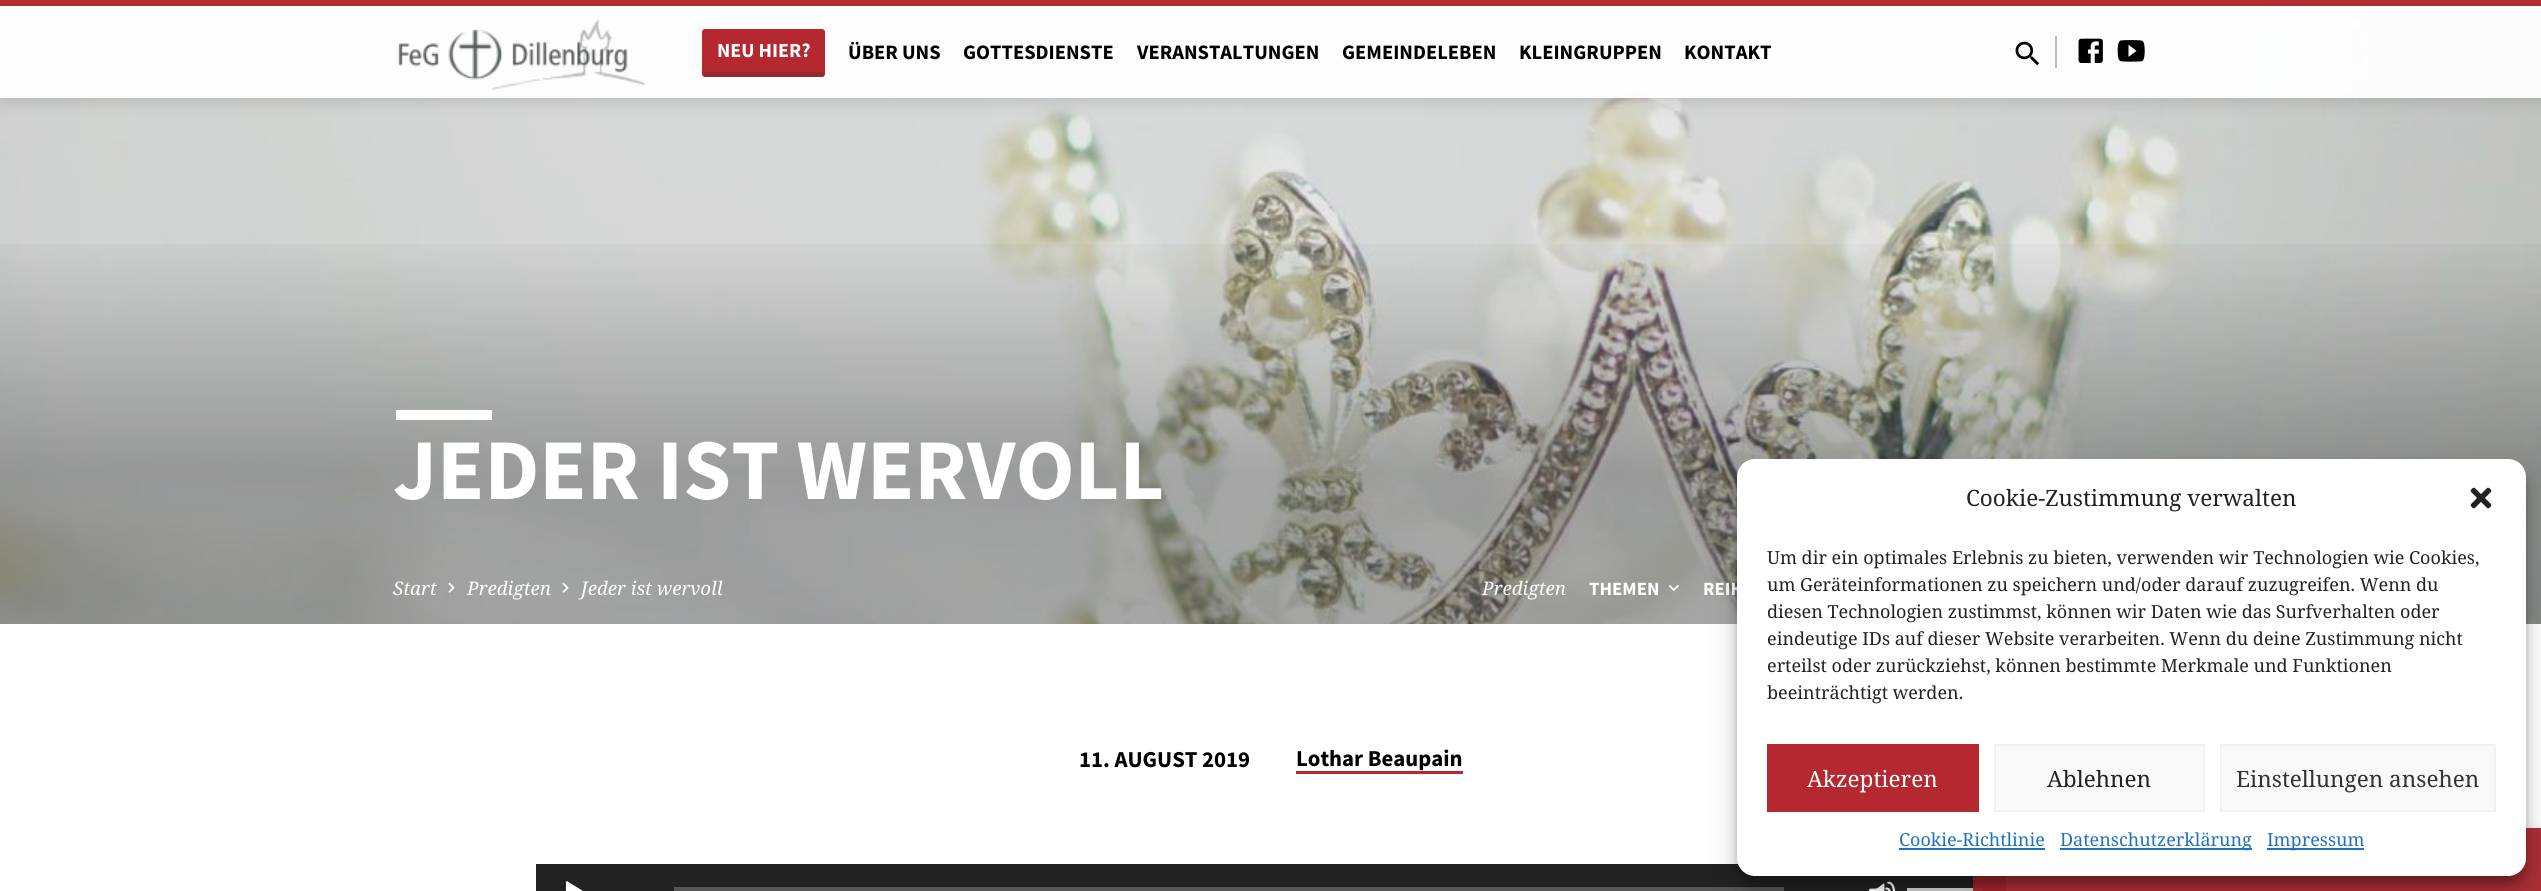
import math
import cairo

surface = cairo.ImageSurface(cairo.Format.RGB24, 2541, 891)
ctx = cairo.Context(surface)
options = cairo.FontOptions()
options.set_hint_metrics(cairo.HintMetrics.OFF)
options.set_hint_style(cairo.HintStyle.NONE)
ctx.set_font_options(options)
ctx.set_miter_limit(4)


def ink(r, g, b):
    ctx.set_source_rgb(r / 255, g / 255, b / 255)


def write(x, y, s, family, size, color, bold=False, italic=False):
    ctx.select_font_face(family, cairo.FontSlant.ITALIC if italic else cairo.FontSlant.NORMAL, cairo.FontWeight.BOLD if bold else cairo.FontWeight.NORMAL)
    ctx.set_font_size(size)
    ink(*color)
    ctx.move_to(x, y)
    ctx.show_text(s)


def block(x, y, w, h, *color):
    ink(*color)
    ctx.rectangle(x, y, w, h)
    ctx.fill()


def round_path(x, y, w, h, r):
    ctx.new_sub_path()
    for i, (u, v) in enumerate([(x + w - r, y + h - r), (x + r, y + h - r), (x + r, y + r), (x + w - r, y + r)]):
        ctx.arc(u, v, r, i * math.pi / 2, (i + 1) * math.pi / 2)
    ctx.close_path()


def blur_box(x, y, w, h, r, blur, alpha):
    ctx.push_group_with_content(cairo.Content.ALPHA)
    ctx.set_operator(cairo.Operator.SOURCE)
    for i in range(15, -16, -2):
        e = blur * i / 6
        if min(w, h) + 2 * e > 0:
            ctx.set_source_rgba(0, 0, 0, alpha * math.erfc((i - 1) / 8.5) / 2)
            round_path(x - e, y - e, w + 2 * e, h + 2 * e, max(0, min(r + e + blur * .6, min(w, h) / 2 + e)))
            ctx.fill()
    ctx.mask(ctx.pop_group())


def paste(path, x, y, w, h):
    ctx.save()
    ctx.set_source_surface(cairo.ImageSurface.create_from_png(path), x, y)
    ctx.rectangle(x, y, w, h)
    ctx.fill()
    ctx.restore()


s1 = dict(family="Source Sans Pro", size=20, color=(255, 255, 255), bold=True)
s2 = dict(family="Source Sans Pro", size=20.5, color=(0, 0, 0), bold=True)
s3 = dict(family="Source Sans Pro", size=86.5, color=(255, 255, 255), bold=True)
s4 = dict(family="Noto Serif", size=18.75, color=(255, 255, 255), italic=True)
s5 = dict(family="Source Sans Pro", size=18.75, color=(255, 255, 255), bold=True)
s6 = dict(family="Source Sans Pro", size=22.75, color=(0, 0, 0), bold=True)
s7 = dict(family="Noto Serif", size=22.5, color=(34, 34, 34))
s8 = dict(family="Noto Serif", size=18, color=(34, 34, 34))
s9 = dict(family="Noto Serif", size=22.5, color=(255, 255, 255))
s10 = dict(family="Noto Serif", size=22.5, color=(51, 51, 51))
s11 = dict(family="Noto Serif", size=18, color=(30, 115, 190))

ink(255, 255, 255)
ctx.paint()
paste("pic5.png", 0, 0, 2541, 624)
ctx.set_source_rgba(0.71, 0.157, 0.188, 0.95)
ctx.rectangle(0, 0, 2541, 6)
ctx.fill()
ctx.set_source_rgba(1, 1, 1, 0.95)
ctx.rectangle(0, 6, 2541, 92)
ctx.fill()
ctx.save()
ctx.set_fill_rule(cairo.FillRule.EVEN_ODD)
ctx.new_path()
ctx.move_to(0, 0)
ctx.line_to(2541, 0)
ctx.line_to(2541, 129)
ctx.line_to(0, 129)
ctx.close_path()
ctx.move_to(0, 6)
ctx.line_to(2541, 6)
ctx.line_to(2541, 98)
ctx.line_to(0, 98)
ctx.close_path()
ctx.clip()
ink(0, 0, 0)
blur_box(0, 9, 2541, 92, 0, 9, 0.14)
ctx.restore()
paste("pic1.png", 398, 19, 248, 71)
ink(181, 40, 48)
round_path(702, 29, 123, 48, 3)
ctx.fill()
ctx.set_source_rgba(0.196, 0.196, 0.196, 0.25)
ctx.rectangle(704, 72, 120, 5)
ctx.fill()
write(717, 57, "NEU HIER?", **s1)
write(848, 59, "ÜBER UNS", **s2)
write(963, 59, "GOTTESDIENSTE", **s2)
write(1137, 59, "VERANSTALTUNGEN", **s2)
write(1342, 59, "GEMEINDELEBEN", **s2)
write(1519, 59, "KLEINGRUPPEN", **s2)
write(1684, 59, "KONTAKT", **s2)
paste("pic2.png", 2015, 41, 25, 25)
block(2055, 36, 2, 32, 187, 187, 187)
paste("pic3.png", 2078, 38, 25, 25)
paste("pic4.png", 2117, 40, 28, 22)
gradient = cairo.LinearGradient(1271, 0, 1271, 624)
gradient.add_color_stop_rgba(0, 0, 0, 0, 0)
gradient.add_color_stop_rgba(0.36, 0, 0, 0, 0)
gradient.add_color_stop_rgba(0.76, 0, 0, 0, 0.28)
gradient.add_color_stop_rgba(1, 0, 0, 0, 0.28)
ctx.set_source(gradient)
ctx.rectangle(0, 244, 2541, 380)
ctx.fill()
block(396, 410, 96, 10, 255, 255, 255)
write(393, 499, "JEDER IST WERVOLL", **s3)
write(393, 595, "Start", **s4)
paste("pic6.png", 448, 582, 7, 11)
write(467, 595, "Predigten", **s4)
paste("pic7.png", 562, 582, 7, 11)
write(581, 595, "Jeder ist wervoll", **s4)
write(1482, 595, "Predigten", **s4)
write(1589, 595, "THEMEN", **s5)
paste("pic8.png", 1668, 585, 11, 7)
write(1703, 595, "REIH", **s5)
write(1079, 767, "11. AUGUST 2019", **s6)
write(1296, 766, "Lothar Beaupain", **s6)
block(1296, 771, 167, 3, 181, 40, 48)
block(536, 864, 1470, 27, 34, 34, 34)
paste("pic9.png", 565, 881, 18, 10)
block(674, 887, 1110, 4, 85, 85, 85)
paste("pic10.png", 1869, 881, 27, 10)
block(1907, 888, 75, 3, 210, 210, 210)
ctx.save()
ctx.set_fill_rule(cairo.FillRule.EVEN_ODD)
ctx.new_path()
ctx.move_to(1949, 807)
ctx.line_to(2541, 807)
ctx.line_to(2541, 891)
ctx.line_to(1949, 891)
ctx.close_path()
ctx.move_to(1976, 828)
ctx.line_to(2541, 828)
ctx.line_to(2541, 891)
ctx.line_to(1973, 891)
ctx.line_to(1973, 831)
ctx.curve_to(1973, 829.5, 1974.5, 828, 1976, 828)
ctx.close_path()
ctx.clip()
ink(0, 0, 0)
blur_box(1973, 831, 568, 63, 3, 7.5, 0.12)
ctx.restore()
ctx.set_source_rgba(0.71, 0.157, 0.188, 0.95)
ctx.rectangle(1973, 828, 568, 63)
ctx.fill()
ctx.set_source_rgba(0, 0, 0, 0.07)
ctx.rectangle(1973, 828, 568, 63)
ctx.fill()
ink(0, 0, 0)
blur_box(1737, 468, 789, 417, 18, 4.5, 0.23)
blur_box(1737, 474, 789, 417, 18, 15, 0.19)
ink(255, 255, 255)
round_path(1737, 459, 789, 417, 18)
ctx.fill()
write(1966, 506, "Cookie-Zustimmung verwalten", **s7)
paste("pic11.png", 2470, 487, 22, 22)
write(1767, 564, "Um dir ein optimales Erlebnis zu bieten, verwenden wir Technologien wie Cookies,", **s8)
write(1767, 591, "um Geräteinformationen zu speichern und/oder darauf zuzugreifen. Wenn du", **s8)
write(1767, 618, "diesen Technologien zustimmst, können wir Daten wie das Surfverhalten oder", **s8)
write(1767, 645, "eindeutige IDs auf dieser Website verarbeiten. Wenn du deine Zustimmung nicht", **s8)
write(1767, 672, "erteilst oder zurückziehst, können bestimmte Merkmale und Funktionen", **s8)
write(1767, 699, "beeinträchtigt werden.", **s8)
block(1767, 744, 212, 68, 181, 40, 48)
write(1807, 787, "Akzeptieren", **s9)
ink(249, 249, 249)
ctx.rectangle(1995, 745, 209, 66)
ctx.fill_preserve()
ink(242, 242, 242)
ctx.stroke()
write(2047, 787, "Ablehnen", **s7)
ink(249, 249, 249)
ctx.rectangle(2221, 745, 274, 66)
ctx.fill_preserve()
ink(242, 242, 242)
ctx.stroke()
write(2236, 787, "Einstellungen ansehen", **s10)
write(1899, 846, "Cookie-Richtlinie", **s11)
block(1899, 848, 146, 2, 30, 115, 190)
block(2060, 848, 192, 2, 30, 115, 190)
write(2060, 846, "Datenschutzerklärung", **s11)
block(2267, 848, 97, 2, 30, 115, 190)
write(2267, 846, "Impressum", **s11)
surface.write_to_png("screenshot.png")
